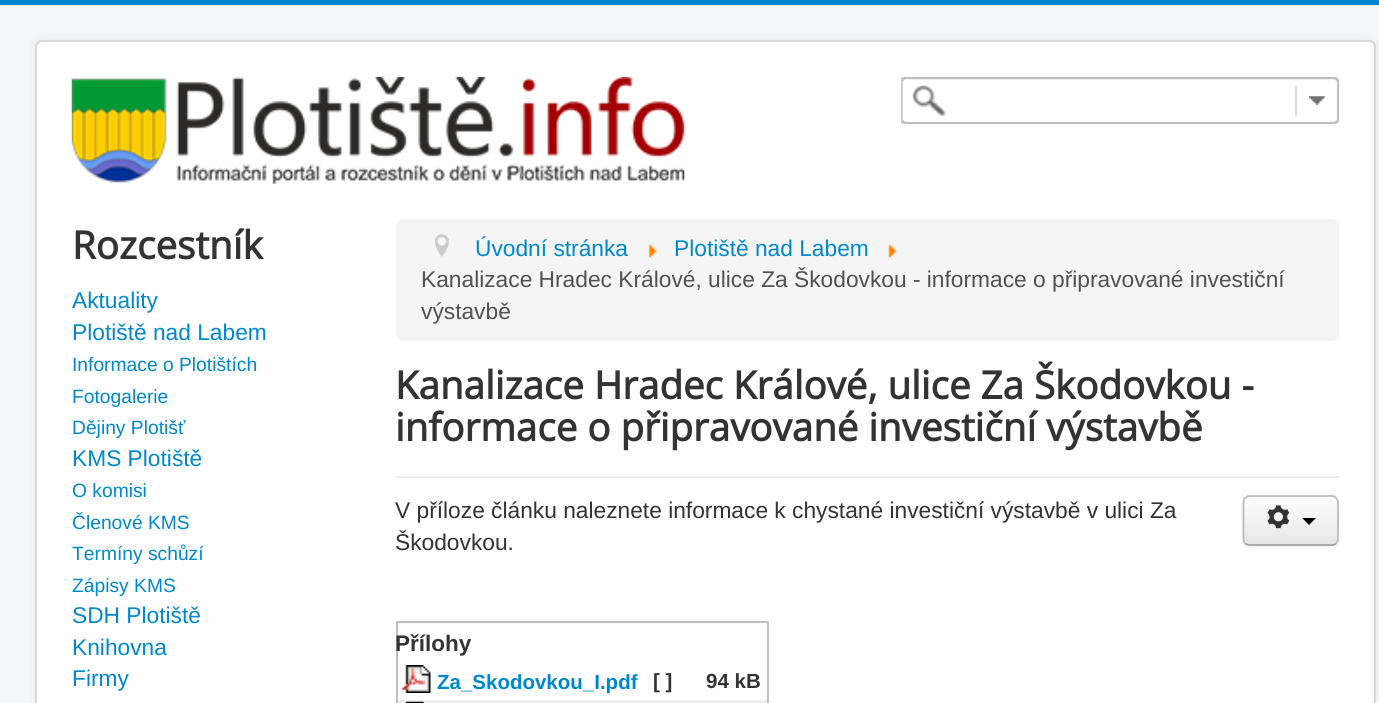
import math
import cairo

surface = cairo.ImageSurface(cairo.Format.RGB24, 1379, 703)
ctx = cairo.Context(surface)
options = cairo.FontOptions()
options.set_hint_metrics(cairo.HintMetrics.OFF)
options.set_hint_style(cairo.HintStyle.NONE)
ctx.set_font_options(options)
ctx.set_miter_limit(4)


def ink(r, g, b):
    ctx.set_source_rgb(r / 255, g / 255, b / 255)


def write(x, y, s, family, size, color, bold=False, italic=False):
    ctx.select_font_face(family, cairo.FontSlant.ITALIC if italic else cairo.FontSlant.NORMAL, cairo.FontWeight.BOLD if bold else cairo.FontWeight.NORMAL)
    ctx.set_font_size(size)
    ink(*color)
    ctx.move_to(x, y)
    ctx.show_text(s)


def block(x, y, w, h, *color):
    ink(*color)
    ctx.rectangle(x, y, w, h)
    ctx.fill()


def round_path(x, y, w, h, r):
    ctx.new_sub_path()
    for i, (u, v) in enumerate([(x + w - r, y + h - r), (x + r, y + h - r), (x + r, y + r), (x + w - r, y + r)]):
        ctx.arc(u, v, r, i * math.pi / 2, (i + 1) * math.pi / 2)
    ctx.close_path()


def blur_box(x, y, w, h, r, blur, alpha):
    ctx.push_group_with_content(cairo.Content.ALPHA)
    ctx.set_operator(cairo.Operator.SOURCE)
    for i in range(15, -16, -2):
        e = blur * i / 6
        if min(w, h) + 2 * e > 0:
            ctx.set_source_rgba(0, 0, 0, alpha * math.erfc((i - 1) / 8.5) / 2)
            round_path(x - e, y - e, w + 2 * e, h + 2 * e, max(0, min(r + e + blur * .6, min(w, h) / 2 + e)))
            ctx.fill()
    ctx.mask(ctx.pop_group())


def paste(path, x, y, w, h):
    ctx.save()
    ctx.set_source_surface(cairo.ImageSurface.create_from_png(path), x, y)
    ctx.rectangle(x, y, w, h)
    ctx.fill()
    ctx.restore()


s1 = dict(family="Open Sans", size=38.5, color=(51, 51, 51), bold=True)
s2 = dict(family="Liberation Sans", size=22.75, color=(0, 136, 204))
s3 = dict(family="Liberation Sans", size=19.25, color=(0, 136, 204))
s4 = dict(family="Liberation Sans", size=22.75, color=(81, 81, 81))
s5 = dict(family="Liberation Sans", size=22.75, color=(51, 51, 51))
s6 = dict(family="Liberation Sans", size=22.5, color=(51, 51, 51), bold=True)
s7 = dict(family="Liberation Sans", size=20.5, color=(0, 136, 204), bold=True)
s8 = dict(family="Liberation Sans", size=20.5, color=(51, 51, 51), bold=True)

ink(244, 246, 247)
ctx.paint()
block(0, 0, 1379, 5, 0, 136, 204)
ink(0, 0, 0)
blur_box(35, 40, 1341, 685, 7, 5, 0.05)
ink(255, 255, 255)
round_path(35, 40, 1341, 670, 7)
ctx.fill()
round_path(36, 41, 1339, 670, 6)
ctx.set_source_rgba(0, 0, 0, 0.15)
ctx.stroke()
paste("pic1.png", 71, 77, 614, 107)
block(903, 77, 436, 47, 242, 242, 242)
ink(255, 255, 255)
round_path(902, 78, 436, 45, 4)
ctx.fill_preserve()
ink(191, 191, 191)
ctx.stroke()
ctx.set_source_rgba(0, 0, 0, 0.07)
ctx.new_path()
ctx.move_to(906, 80)
ctx.line_to(1334, 80)
ctx.curve_to(1335, 80, 1337, 82, 1337, 84)
ctx.curve_to(1337, 81, 1336, 79, 1333, 79)
ctx.line_to(907, 79)
ctx.line_to(905, 80)
ctx.line_to(904, 81)
ctx.line_to(903, 84)
ctx.curve_to(903, 82, 905, 80, 906, 80)
ctx.close_path()
ctx.fill()
round_path(902, 78, 436, 45, 4)
ink(191, 191, 191)
ctx.stroke()
block(901, 77, 2, 47, 206, 206, 206)
paste("pic2.png", 912, 85, 35, 32)
block(1295, 86, 2, 30, 218, 218, 218)
paste("pic3.png", 1309, 96, 16, 9)
write(72, 259, "Rozcestník", **s1)
write(72, 308, "Aktuality", **s2)
write(72, 340, "Plotiště nad Labem", **s2)
write(72, 371, "Informace o Plotištích", **s3)
write(72, 403, "Fotogalerie", **s3)
write(72, 434, "Dějiny Plotišť", **s3)
write(72, 466, "KMS Plotiště", **s2)
write(72, 497, "O komisi", **s3)
write(72, 529, "Členové KMS", **s3)
write(72, 560, "Termíny schůzí", **s3)
write(72, 592, "Zápisy KMS", **s3)
write(72, 623, "SDH Plotiště", **s2)
write(72, 655, "Knihovna", **s2)
write(72, 686, "Firmy", **s2)
ink(245, 245, 245)
round_path(396, 219, 943, 122, 7)
ctx.fill()
paste("pic4.png", 434, 234, 15, 23)
write(475, 256, "Úvodní stránka", **s2)
paste("pic5.png", 648, 244, 9, 14)
write(674, 256, "Plotiště nad Labem", **s2)
paste("pic6.png", 888, 244, 9, 14)
write(421, 287, "Kanalizace Hradec Králové, ulice Za Škodovkou - informace o připravované investiční", **s4)
write(421, 319, "výstavbě", **s4)
block(396, 476, 943, 2, 238, 238, 238)
write(395, 399, "Kanalizace Hradec Králové, ulice Za Škodovkou -", **s1)
write(395, 441, "informace o připravované investiční výstavbě", **s1)
write(395, 518, "V příloze článku naleznete informace k chystané investiční výstavbě v ulici Za", **s5)
write(395, 550, "Škodovkou.", **s5)
block(396, 621, 372, 2, 192, 192, 192)
block(767, 621, 2, 82, 192, 192, 192)
block(396, 700, 371, 3, 238, 238, 238)
block(396, 621, 2, 82, 192, 192, 192)
write(395, 651, "Přílohy", **s6)
paste("pic7.png", 402, 665, 29, 28)
write(437, 689, "Za_Skodovkou_I.pdf", **s7)
write(653, 688, "[ ]", **s8)
write(706, 688, "94 kB", **s8)
paste("pic8.png", 405, 701, 19, 2)
ink(0, 0, 0)
blur_box(1243, 497, 96, 51, 7, 2, 0.05)
ink(245, 245, 245)
round_path(1243, 495, 96, 51, 7)
ctx.fill()
ctx.save()
round_path(1243, 495, 96, 51, 7)
ctx.clip()
gradient = cairo.LinearGradient(1291, 497, 1291, 544)
gradient.add_color_stop_rgba(0, 1, 1, 1, 1)
gradient.add_color_stop_rgba(1, 0.902, 0.902, 0.902, 1)
ctx.set_source(gradient)
ctx.rectangle(1243, 497, 96, 47)
ctx.fill()
ctx.restore()
ctx.new_path()
ctx.move_to(1336, 543.5)
ctx.curve_to(1335, 544.5, 1333.5, 545, 1332, 545)
ctx.line_to(1249.5, 545)
ctx.curve_to(1248, 545, 1246.5, 544.5, 1245, 543.5)
ink(162, 162, 162)
ctx.set_line_width(1.8)
ctx.stroke()
ctx.new_path()
ctx.move_to(1245, 543.5)
ctx.curve_to(1244, 542, 1243.5, 540.5, 1243.5, 539)
ctx.line_to(1243.5, 502)
ctx.curve_to(1243.5, 500.5, 1244, 499, 1245, 498)
ctx.curve_to(1246.5, 497, 1248, 496, 1249.5, 496)
ctx.line_to(1332, 496)
ctx.curve_to(1333.5, 496, 1335, 497, 1336, 498)
ctx.curve_to(1337, 499, 1338, 500.5, 1338, 502)
ctx.line_to(1338, 539)
ctx.curve_to(1338, 540.5, 1337, 542, 1336, 543.5)
ink(187, 187, 187)
ctx.stroke()
paste("pic9.png", 1267, 505, 23, 24)
ink(0, 0, 0)
ctx.new_path()
ctx.move_to(1302, 518)
ctx.line_to(1316, 518)
ctx.line_to(1309, 525)
ctx.close_path()
ctx.fill()
surface.write_to_png("screenshot.png")
